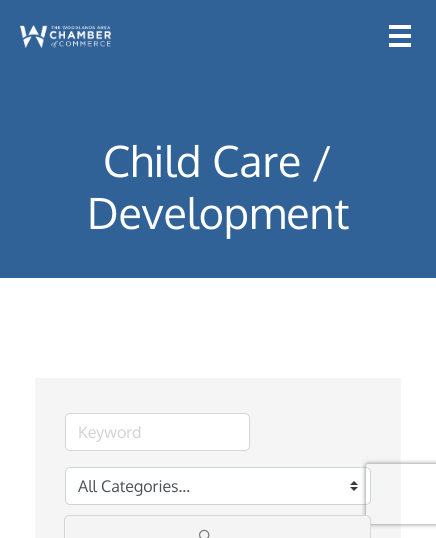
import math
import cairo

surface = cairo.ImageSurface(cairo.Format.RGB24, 436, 538)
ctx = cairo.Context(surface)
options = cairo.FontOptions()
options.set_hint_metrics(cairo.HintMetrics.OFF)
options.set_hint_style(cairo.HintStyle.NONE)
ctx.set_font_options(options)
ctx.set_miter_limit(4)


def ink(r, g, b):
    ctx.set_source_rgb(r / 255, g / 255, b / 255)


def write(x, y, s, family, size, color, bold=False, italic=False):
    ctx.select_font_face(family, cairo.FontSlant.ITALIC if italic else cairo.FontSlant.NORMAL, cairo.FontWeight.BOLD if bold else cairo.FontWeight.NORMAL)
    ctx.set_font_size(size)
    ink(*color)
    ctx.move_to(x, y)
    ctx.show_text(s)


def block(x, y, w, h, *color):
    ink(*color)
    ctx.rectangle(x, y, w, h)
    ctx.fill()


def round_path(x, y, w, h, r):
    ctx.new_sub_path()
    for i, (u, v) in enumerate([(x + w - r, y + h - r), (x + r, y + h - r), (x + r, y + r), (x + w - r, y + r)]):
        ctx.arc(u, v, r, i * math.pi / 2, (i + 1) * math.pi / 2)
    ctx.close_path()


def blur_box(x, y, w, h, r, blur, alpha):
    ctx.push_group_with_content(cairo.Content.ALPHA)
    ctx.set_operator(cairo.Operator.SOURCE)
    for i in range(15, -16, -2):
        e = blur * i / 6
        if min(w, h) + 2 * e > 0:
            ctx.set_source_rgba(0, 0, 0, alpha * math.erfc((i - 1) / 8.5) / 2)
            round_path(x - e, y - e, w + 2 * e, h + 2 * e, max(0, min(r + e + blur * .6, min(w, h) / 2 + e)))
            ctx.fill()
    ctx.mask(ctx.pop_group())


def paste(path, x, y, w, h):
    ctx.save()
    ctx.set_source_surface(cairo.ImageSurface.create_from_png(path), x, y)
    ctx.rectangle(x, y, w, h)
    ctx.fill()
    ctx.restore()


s1 = dict(family="Oxygen", size=43, color=(255, 255, 255))
s2 = dict(family="Oxygen", size=16, color=(210, 210, 210))
s3 = dict(family="Oxygen", size=16, color=(73, 80, 87))

ink(255, 255, 255)
ctx.paint()
block(0, 0, 436, 278, 49, 98, 151)
paste("pic1.png", 20, 25, 91, 23)
block(389, 25, 22, 4, 255, 255, 255)
block(389, 34, 22, 4, 255, 255, 255)
block(389, 43, 22, 4, 255, 255, 255)
write(103, 177, "Child Care /", **s1)
write(87, 229, "Development", **s1)
block(35, 378, 366, 160, 245, 245, 245)
ink(255, 255, 255)
round_path(65.5, 413.5, 184, 37, 4.5)
ctx.fill_preserve()
ink(214, 214, 214)
ctx.set_line_width(1)
ctx.stroke()
write(78, 438, "Keyword", **s2)
ink(255, 255, 255)
round_path(65, 467, 306, 38, 5)
ctx.fill()
paste("pic2.png", 350, 481, 8, 10)
round_path(65.5, 467.5, 305, 37, 4.5)
ink(206, 212, 218)
ctx.stroke()
write(78, 492, "All Categories...", **s3)
ctx.save()
ctx.set_fill_rule(cairo.FillRule.EVEN_ODD)
ctx.new_path()
ctx.move_to(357, 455)
ctx.line_to(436, 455)
ctx.line_to(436, 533)
ctx.line_to(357, 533)
ctx.close_path()
ctx.move_to(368, 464)
ctx.line_to(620, 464)
ctx.curve_to(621, 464, 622, 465, 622, 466)
ctx.line_to(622, 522)
ctx.curve_to(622, 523, 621, 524, 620, 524)
ctx.line_to(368, 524)
ctx.curve_to(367, 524, 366, 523, 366, 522)
ctx.line_to(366, 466)
ctx.curve_to(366, 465, 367, 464, 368, 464)
ctx.close_path()
ctx.clip()
ink(128, 128, 128)
blur_box(366, 464, 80, 60, 2, 2.5, 1)
ctx.restore()
ink(244, 244, 244)
round_path(64.5, 515.5, 306, 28, 4.5)
ctx.fill_preserve()
ink(214, 214, 214)
ctx.stroke()
paste("pic3.png", 199, 529, 11, 9)
surface.write_to_png("screenshot.png")
